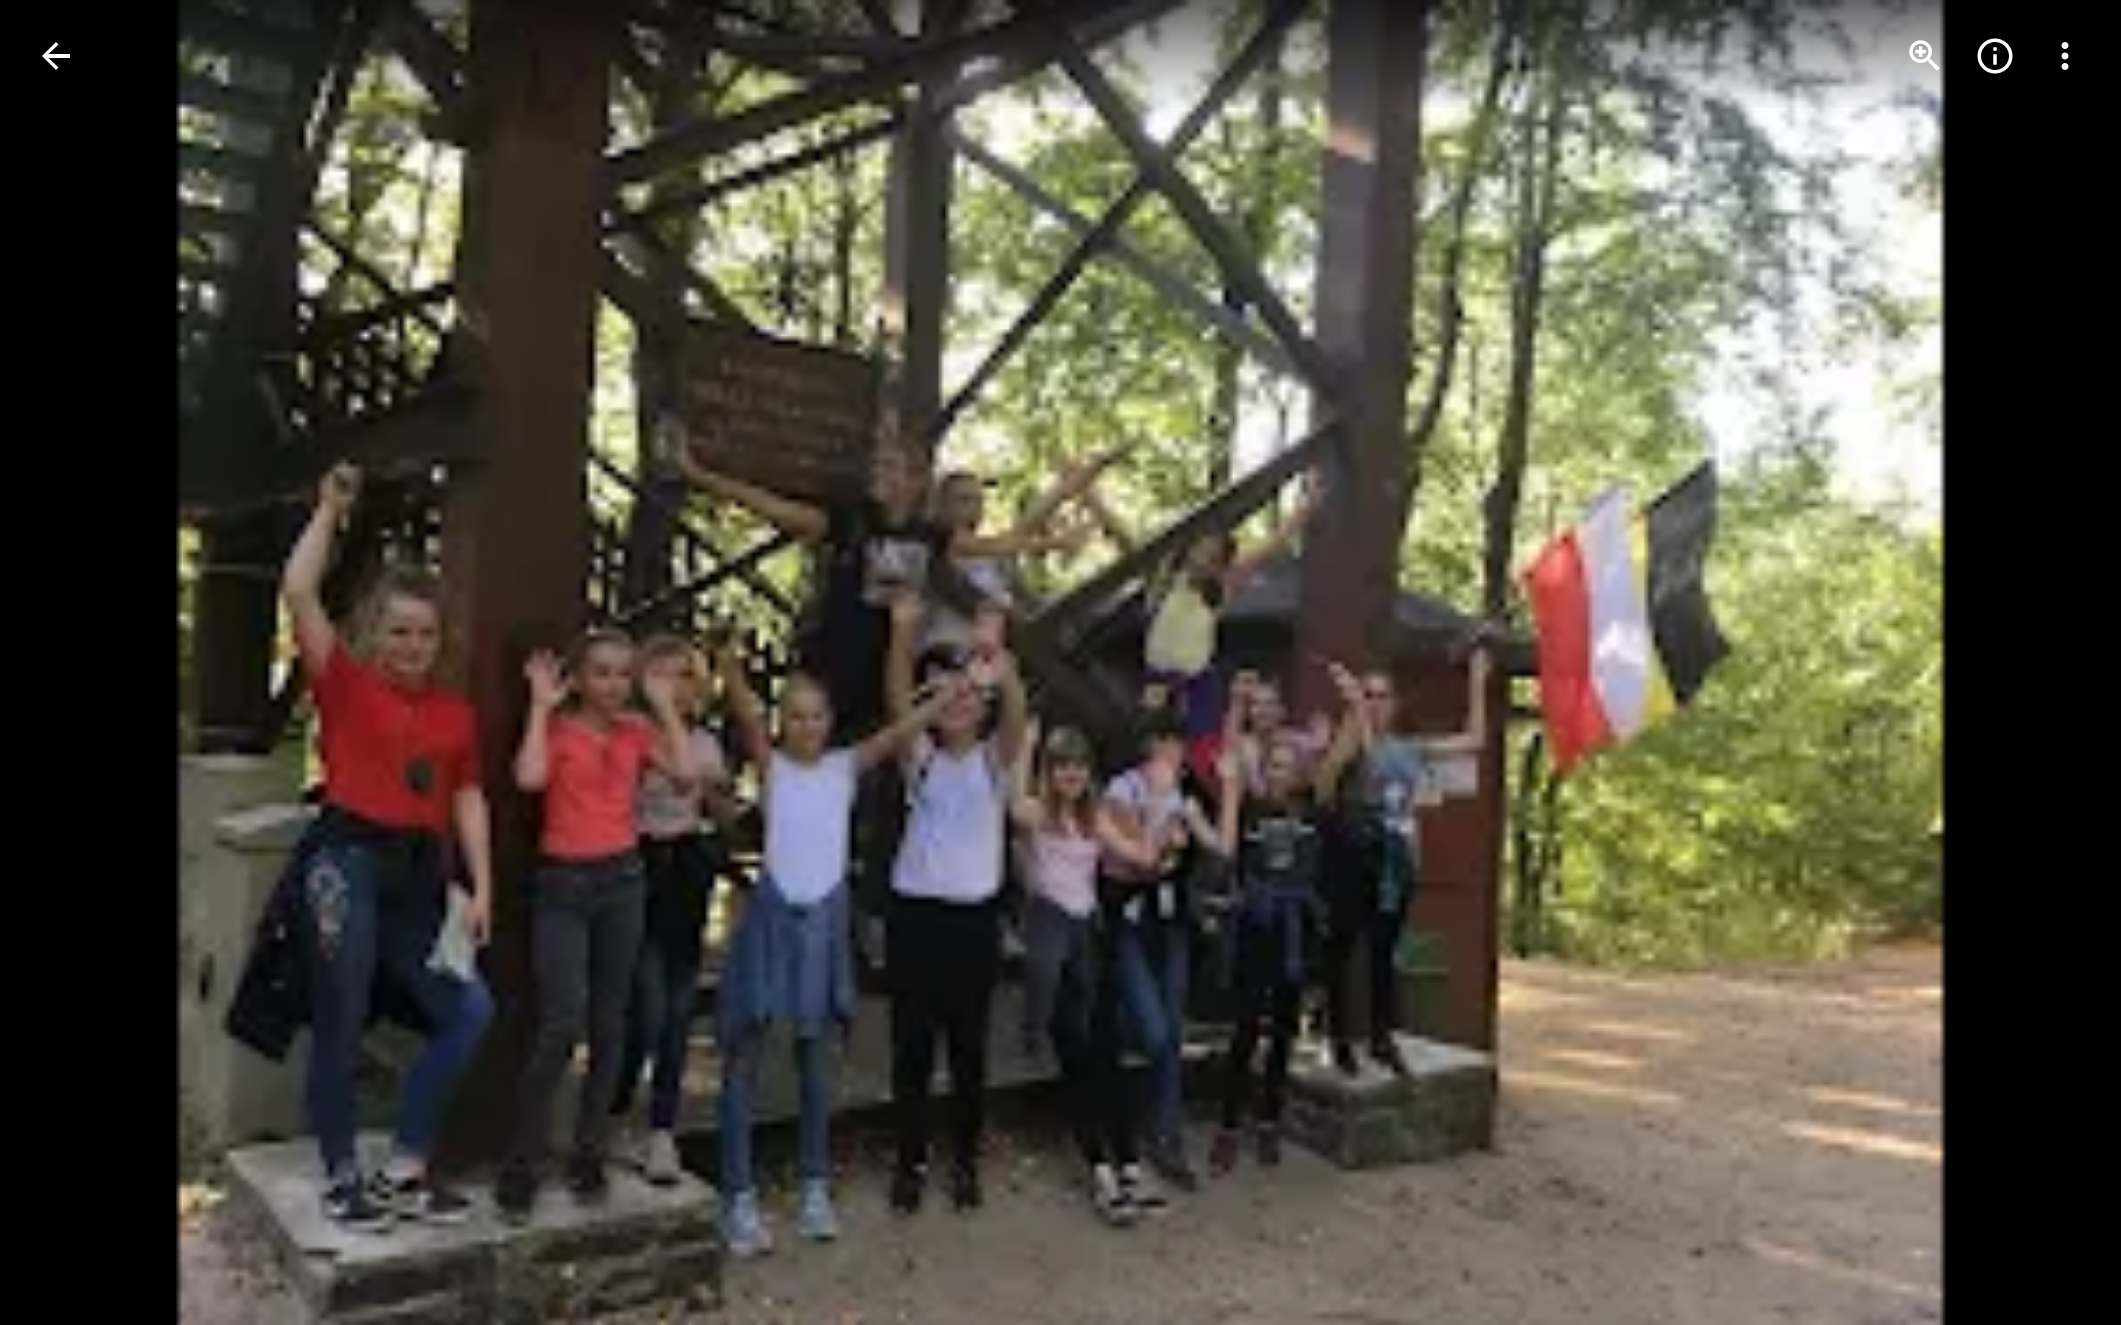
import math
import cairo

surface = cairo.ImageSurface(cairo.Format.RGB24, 2121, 1325)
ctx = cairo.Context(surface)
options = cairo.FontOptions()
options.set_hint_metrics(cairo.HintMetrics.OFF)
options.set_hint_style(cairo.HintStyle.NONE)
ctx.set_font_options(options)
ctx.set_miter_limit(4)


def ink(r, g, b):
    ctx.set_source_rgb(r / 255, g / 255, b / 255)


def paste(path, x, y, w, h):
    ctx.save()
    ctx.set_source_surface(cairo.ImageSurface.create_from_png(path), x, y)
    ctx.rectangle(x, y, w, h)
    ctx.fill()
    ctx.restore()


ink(0, 0, 0)
ctx.paint()
paste("pic4.png", 176, 0, 1770, 1325)
gradient = cairo.LinearGradient(1061, 0, 1061, 112)
gradient.add_color_stop_rgba(0, 0, 0, 0, 0.6)
gradient.add_color_stop_rgba(1, 0, 0, 0, 0)
ctx.set_source(gradient)
ctx.rectangle(176, 0, 1770, 108)
ctx.fill()
ink(255, 255, 255)
ctx.new_path()
ctx.move_to(70, 54)
ctx.line_to(48.5, 54)
ctx.line_to(58.5, 44.5)
ctx.line_to(56, 42)
ctx.line_to(42, 56)
ctx.line_to(56, 70)
ctx.line_to(58.5, 67.5)
ctx.line_to(48.5, 58)
ctx.line_to(70, 58)
ctx.close_path()
ctx.fill()
paste("pic1.png", 1909, 40, 31, 31)
paste("pic2.png", 1977, 38, 36, 36)
paste("pic3.png", 2061, 42, 8, 28)
surface.write_to_png("screenshot.png")
